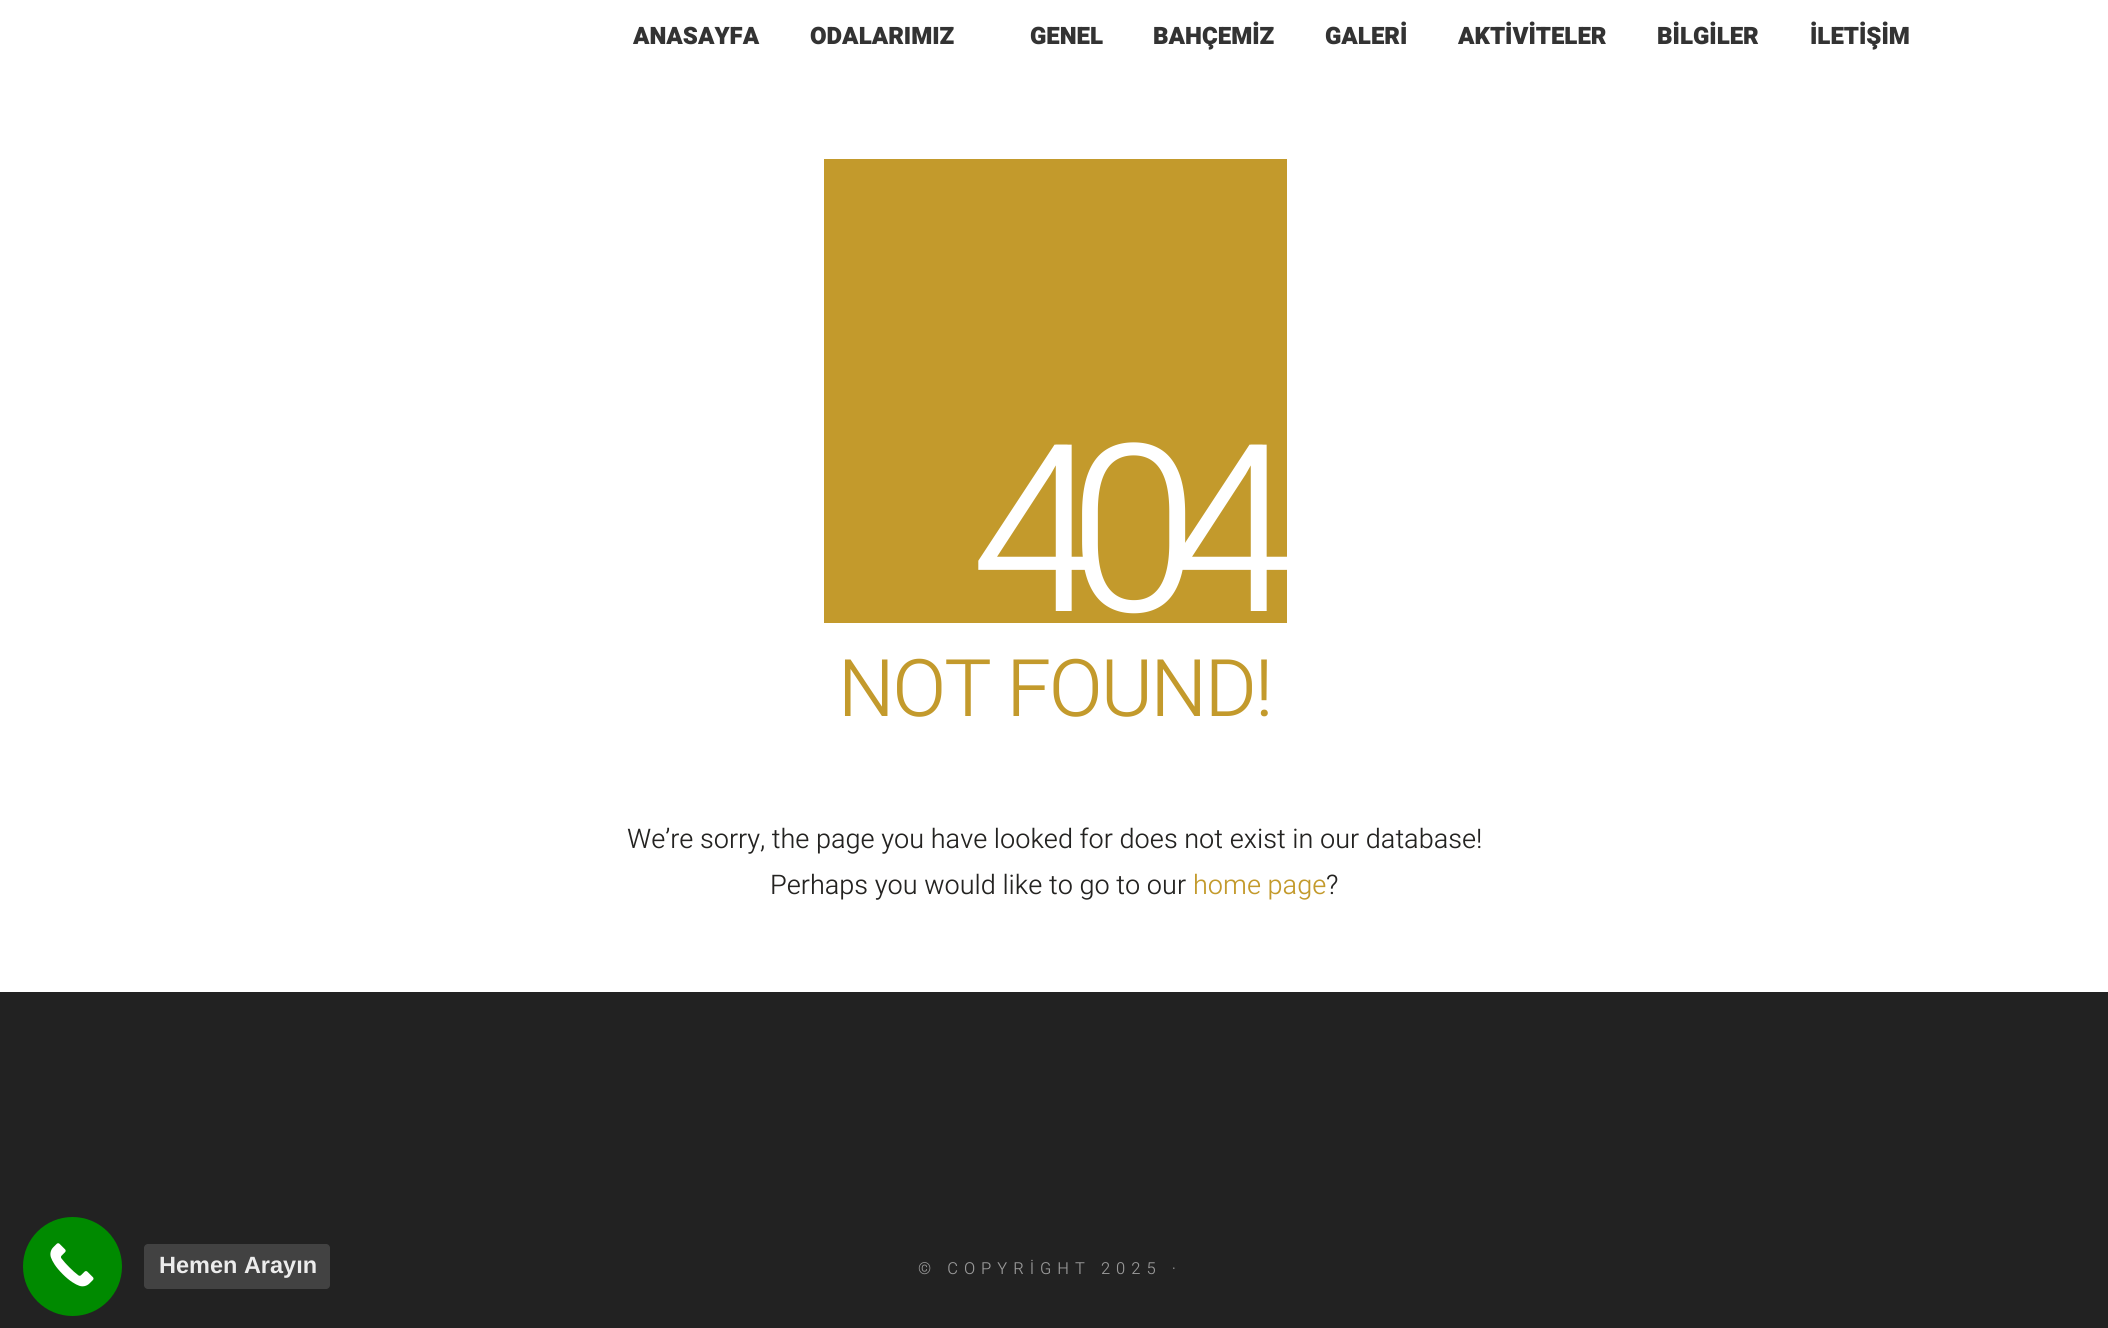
import math
import cairo

surface = cairo.ImageSurface(cairo.Format.RGB24, 2108, 1328)
ctx = cairo.Context(surface)
options = cairo.FontOptions()
options.set_hint_metrics(cairo.HintMetrics.OFF)
options.set_hint_style(cairo.HintStyle.NONE)
ctx.set_font_options(options)
ctx.set_miter_limit(4)


def ink(r, g, b):
    ctx.set_source_rgb(r / 255, g / 255, b / 255)


def write(x, y, s, family, size, color, bold=False, italic=False):
    ctx.select_font_face(family, cairo.FontSlant.ITALIC if italic else cairo.FontSlant.NORMAL, cairo.FontWeight.BOLD if bold else cairo.FontWeight.NORMAL)
    ctx.set_font_size(size)
    ink(*color)
    ctx.move_to(x, y)
    ctx.show_text(s)


def write_spaced(x, y, s, letter, word):
    ctx.move_to(x, y)
    for ch in s:
        ctx.show_text(ch)
        ctx.rel_move_to(letter + word * (ch == ' '), 0)


def block(x, y, w, h, *color):
    ink(*color)
    ctx.rectangle(x, y, w, h)
    ctx.fill()


def round_path(x, y, w, h, r):
    ctx.new_sub_path()
    for i, (u, v) in enumerate([(x + w - r, y + h - r), (x + r, y + h - r), (x + r, y + r), (x + w - r, y + r)]):
        ctx.arc(u, v, r, i * math.pi / 2, (i + 1) * math.pi / 2)
    ctx.close_path()


def paste(path, x, y, w, h):
    ctx.save()
    ctx.set_source_surface(cairo.ImageSurface.create_from_png(path), x, y)
    ctx.rectangle(x, y, w, h)
    ctx.fill()
    ctx.restore()


s1 = dict(family="Heebo Black", size=24, color=(51, 51, 51))
s2 = dict(family="Heebo Light", size=27, color=(36, 35, 33))
s3 = dict(family="Heebo Light", size=27, color=(195, 154, 44))
s4 = dict(family="Liberation Sans", size=23.5, color=(236, 236, 236), bold=True)

ink(255, 255, 255)
ctx.paint()
write(633, 44, "ANASAYFA", **s1)
write(810, 44, "ODALARIMIZ", **s1)
write(1030, 44, "GENEL", **s1)
write(1153, 44, "BAHÇEMİZ", **s1)
write(1325, 44, "GALERİ", **s1)
write(1458, 44, "AKTİVİTELER", **s1)
write(1657, 44, "BİLGİLER", **s1)
write(1810, 44, "İLETİŞİM", **s1)
block(824, 159, 463, 464, 195, 154, 44)
ctx.select_font_face("Heebo Light")
ctx.set_font_size(234)
ink(255, 255, 255)
write_spaced(971, 611, "4 0 4", -45, 0)
ctx.set_font_size(79.5)
ink(195, 154, 44)
write_spaced(838, 716, "NOT FOUND!", -2.25, 0)
write(627, 848, "We’re sorry, the page you have looked for does not exist in our database!", **s2)
write(770, 894, "Perhaps you would like to go to our", **s2)
write(1193, 894, "home page", **s3)
write(1326, 894, "?", **s2)
block(0, 992, 2108, 336, 34, 34, 34)
ink(0, 138, 0)
ctx.new_path()
ctx.arc(72.5, 1266.5, 49.5, 0, 2 * math.pi)
ctx.fill()
paste("pic1.png", 50, 1243, 44, 44)
ctx.set_source_rgba(0.275, 0.275, 0.275, 0.9)
round_path(144, 1244, 186, 45, 4)
ctx.fill()
write(159, 1273, "Hemen Arayın", **s4)
ctx.select_font_face("Heebo Light")
ctx.set_font_size(16.5)
ink(153, 153, 153)
write_spaced(918, 1274, "© COPYRİGHT 2025 ·", 6, 0)
surface.write_to_png("screenshot.png")
